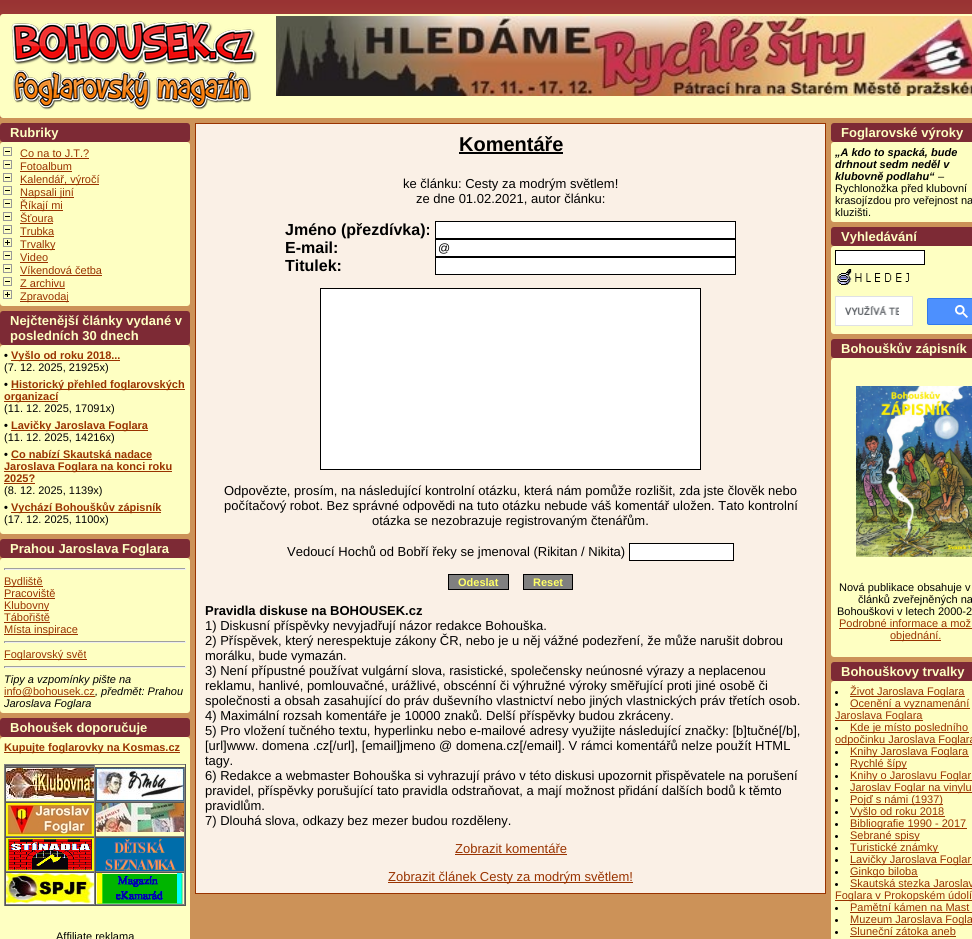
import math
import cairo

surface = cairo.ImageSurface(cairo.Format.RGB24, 972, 939)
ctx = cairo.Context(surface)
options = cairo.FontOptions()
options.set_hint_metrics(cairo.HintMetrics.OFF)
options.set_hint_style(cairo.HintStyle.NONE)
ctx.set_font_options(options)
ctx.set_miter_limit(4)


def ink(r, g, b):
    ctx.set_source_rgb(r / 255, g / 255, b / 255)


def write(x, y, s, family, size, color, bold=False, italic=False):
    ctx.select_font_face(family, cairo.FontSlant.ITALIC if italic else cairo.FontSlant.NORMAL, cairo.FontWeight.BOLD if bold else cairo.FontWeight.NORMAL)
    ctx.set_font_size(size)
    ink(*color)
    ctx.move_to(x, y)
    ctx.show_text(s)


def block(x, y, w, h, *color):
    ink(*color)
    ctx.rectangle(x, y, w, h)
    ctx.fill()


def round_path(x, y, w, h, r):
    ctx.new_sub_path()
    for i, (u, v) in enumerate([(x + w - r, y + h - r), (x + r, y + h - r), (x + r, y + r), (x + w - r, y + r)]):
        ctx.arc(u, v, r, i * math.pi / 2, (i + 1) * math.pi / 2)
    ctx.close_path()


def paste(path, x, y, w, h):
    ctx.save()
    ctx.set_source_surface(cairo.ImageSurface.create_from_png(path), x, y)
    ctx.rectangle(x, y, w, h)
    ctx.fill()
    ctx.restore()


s1 = dict(family="Liberation Sans", size=13, color=(254, 255, 194), bold=True)
s2 = dict(family="Liberation Sans", size=11, color=(153, 51, 0))
s3 = dict(family="Liberation Sans", size=11, color=(0, 0, 0), bold=True)
s4 = dict(family="Liberation Sans", size=11, color=(153, 51, 0), bold=True)
s5 = dict(family="Liberation Sans", size=11, color=(0, 0, 0))
s6 = dict(family="Liberation Sans", size=11, color=(0, 0, 0), italic=True)
s7 = dict(family="Liberation Sans", size=20, color=(0, 0, 0), bold=True)
s8 = dict(family="Liberation Sans", size=13, color=(0, 0, 0))
s9 = dict(family="Liberation Sans", size=16, color=(0, 0, 0), bold=True)
s10 = dict(family="Liberation Sans", size=12, color=(0, 0, 0))
s11 = dict(family="Liberation Sans", size=11, color=(255, 255, 102), bold=True)
s12 = dict(family="Liberation Sans", size=13, color=(0, 0, 0), bold=True)
s13 = dict(family="Liberation Sans", size=13, color=(153, 51, 0))
s14 = dict(family="Liberation Sans", size=11, color=(0, 0, 0), bold=True, italic=True)

ink(255, 255, 255)
ctx.paint()
paste("pic1.png", 0, 0, 972, 118)
ink(254, 255, 194)
round_path(0, 14, 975, 104, 3)
ctx.fill()
paste("pic2.png", 11, 21, 247, 89)
paste("pic3.png", 276, 16, 696, 80)
block(0, 118, 972, 821, 204, 146, 88)
ink(125, 42, 53)
round_path(0, 123, 190, 19, 3)
ctx.fill()
write(10, 137, "Rubriky", **s1)
round_path(0, 142, 190, 164, 3)
ctx.fill()
paste("pic4.png", 3, 147, 9, 9)
write(20, 157, "Co na to J.T.?", **s2)
block(20, 158, 69, 1, 153, 51, 0)
paste("pic4.png", 3, 160, 9, 9)
write(20, 170, "Fotoalbum", **s2)
block(20, 171, 52, 1, 153, 51, 0)
paste("pic4.png", 3, 173, 9, 9)
block(20, 184, 79, 1, 153, 51, 0)
write(20, 183, "Kalendář, výročí", **s2)
paste("pic4.png", 3, 186, 9, 9)
block(20, 197, 54, 1, 153, 51, 0)
write(20, 196, "Napsali jiní", **s2)
paste("pic4.png", 3, 199, 9, 9)
block(20, 210, 43, 1, 153, 51, 0)
write(20, 209, "Říkají mi", **s2)
paste("pic4.png", 3, 212, 9, 9)
write(20, 222, "Šťoura", **s2)
block(20, 223, 33, 1, 153, 51, 0)
paste("pic4.png", 3, 225, 9, 9)
write(20, 235, "Trubka", **s2)
block(20, 236, 34, 1, 153, 51, 0)
paste("pic5.png", 3, 238, 9, 9)
block(20, 249, 35, 1, 153, 51, 0)
write(20, 248, "Trvalky", **s2)
paste("pic4.png", 3, 251, 9, 9)
write(20, 261, "Video", **s2)
block(20, 262, 28, 1, 153, 51, 0)
paste("pic4.png", 3, 264, 9, 9)
write(20, 274, "Víkendová četba", **s2)
block(20, 275, 82, 1, 153, 51, 0)
paste("pic4.png", 3, 277, 9, 9)
write(20, 287, "Z archivu", **s2)
block(20, 288, 45, 1, 153, 51, 0)
paste("pic5.png", 3, 290, 9, 9)
block(20, 301, 49, 1, 153, 51, 0)
write(20, 300, "Zpravodaj", **s2)
ink(125, 42, 53)
round_path(0, 311, 190, 34, 3)
ctx.fill()
write(10, 325, "Nejčtenější články vydané v", **s1)
write(10, 340, "posledních 30 dnech", **s1)
round_path(0, 345, 190, 189, 3)
ctx.fill()
write(4, 359, "•", **s3)
block(11, 360, 109, 1, 153, 51, 0)
write(11, 359, "Vyšlo od roku 2018...", **s4)
write(4, 371, "(7. 12. 2025, 21925x)", **s5)
write(4, 388, "•", **s3)
block(11, 389, 174, 1, 153, 51, 0)
write(11, 388, "Historický přehled foglarovských", **s4)
block(4, 401, 54, 1, 153, 51, 0)
write(4, 400, "organizací", **s4)
write(4, 412, "(11. 12. 2025, 17091x)", **s5)
write(4, 429, "•", **s3)
block(11, 430, 137, 1, 153, 51, 0)
write(11, 429, "Lavičky Jaroslava Foglara", **s4)
write(4, 441, "(11. 12. 2025, 14216x)", **s5)
write(4, 458, "•", **s3)
write(11, 458, "Co nabízí Skautská nadace", **s4)
block(11, 459, 141, 1, 153, 51, 0)
block(4, 471, 168, 1, 153, 51, 0)
write(4, 470, "Jaroslava Foglara na konci roku", **s4)
write(4, 482, "2025?", **s4)
block(4, 483, 31, 1, 153, 51, 0)
write(4, 494, "(8. 12. 2025, 1139x)", **s5)
write(4, 511, "•", **s3)
block(11, 512, 150, 1, 153, 51, 0)
write(11, 511, "Vychází Bohouškův zápisník", **s4)
write(4, 523, "(17. 12. 2025, 1100x)", **s5)
ink(125, 42, 53)
round_path(0, 539, 190, 19, 3)
ctx.fill()
write(10, 553, "Prahou Jaroslava Foglara", **s1)
round_path(0, 558, 190, 155, 3)
ctx.fill()
block(4, 568, 182, 1, 159, 159, 159)
block(185, 568, 1, 2, 238, 238, 238)
block(4, 569, 182, 1, 238, 238, 238)
block(4, 568, 1, 2, 159, 159, 159)
block(4, 586, 39, 1, 153, 51, 0)
write(4, 585, "Bydliště", **s2)
write(4, 597, "Pracoviště", **s2)
block(4, 598, 51, 1, 153, 51, 0)
block(4, 610, 45, 1, 153, 51, 0)
write(4, 609, "Klubovny", **s2)
write(4, 621, "Tábořiště", **s2)
block(4, 622, 46, 1, 153, 51, 0)
block(4, 634, 74, 1, 153, 51, 0)
write(4, 633, "Místa inspirace", **s2)
block(4, 641, 182, 1, 159, 159, 159)
block(185, 641, 1, 2, 238, 238, 238)
block(4, 642, 182, 1, 238, 238, 238)
block(4, 641, 1, 2, 159, 159, 159)
block(4, 659, 83, 1, 153, 51, 0)
write(4, 658, "Foglarovský svět", **s2)
block(4, 666, 182, 1, 159, 159, 159)
block(185, 666, 1, 2, 238, 238, 238)
block(4, 667, 182, 1, 238, 238, 238)
block(4, 666, 1, 2, 159, 159, 159)
write(4, 683, "Tipy a vzpomínky pište na", **s6)
block(4, 696, 91, 1, 153, 51, 0)
write(4, 695, "info@bohousek.cz", **s2)
write(95, 695, ", předmět: Prahou", **s6)
write(4, 707, "Jaroslava Foglara", **s6)
ink(125, 42, 53)
round_path(0, 718, 190, 19, 3)
ctx.fill()
write(10, 732, "Bohoušek doporučuje", **s1)
round_path(0, 737, 190, 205, 3)
ctx.fill()
block(4, 752, 176, 1, 153, 51, 0)
write(4, 751, "Kupujte foglarovky na Kosmas.cz", **s4)
block(4, 764, 182, 1, 128, 128, 128)
block(185, 764, 1, 142, 85, 85, 85)
block(4, 905, 182, 1, 85, 85, 85)
block(4, 764, 1, 142, 128, 128, 128)
block(5, 765, 90, 1, 85, 85, 85)
block(94, 765, 1, 2, 128, 128, 128)
block(5, 766, 90, 1, 128, 128, 128)
block(5, 765, 1, 2, 85, 85, 85)
block(5, 767, 180, 1, 85, 85, 85)
block(94, 767, 1, 35, 128, 128, 128)
block(5, 801, 90, 1, 128, 128, 128)
block(5, 767, 1, 35, 85, 85, 85)
paste("pic6.png", 6, 768, 88, 31)
block(184, 767, 1, 35, 128, 128, 128)
block(95, 801, 90, 1, 128, 128, 128)
block(95, 767, 1, 35, 85, 85, 85)
paste("pic7.png", 96, 768, 88, 33)
block(5, 802, 180, 1, 85, 85, 85)
block(94, 802, 1, 35, 128, 128, 128)
block(5, 836, 90, 1, 128, 128, 128)
block(5, 802, 1, 35, 85, 85, 85)
paste("pic8.png", 6, 803, 88, 33)
block(184, 802, 1, 35, 128, 128, 128)
block(95, 836, 90, 1, 128, 128, 128)
block(95, 802, 1, 35, 85, 85, 85)
paste("pic9.png", 96, 803, 88, 29)
block(5, 837, 180, 1, 85, 85, 85)
block(94, 837, 1, 35, 128, 128, 128)
block(5, 871, 90, 1, 128, 128, 128)
block(5, 837, 1, 35, 85, 85, 85)
paste("pic10.png", 6, 838, 88, 33)
block(184, 837, 1, 35, 128, 128, 128)
block(95, 871, 90, 1, 128, 128, 128)
block(95, 837, 1, 35, 85, 85, 85)
paste("pic11.png", 96, 838, 88, 33)
block(5, 872, 180, 1, 85, 85, 85)
block(94, 872, 1, 33, 128, 128, 128)
block(5, 904, 90, 1, 128, 128, 128)
block(5, 872, 1, 33, 85, 85, 85)
paste("pic12.png", 6, 873, 88, 31)
block(184, 872, 1, 33, 128, 128, 128)
block(95, 904, 90, 1, 128, 128, 128)
block(95, 872, 1, 33, 85, 85, 85)
paste("pic13.png", 97, 873, 86, 31)
write(56, 940, "Affiliate reklama", **s5)
ink(250, 240, 230)
ctx.rectangle(195.5, 123.5, 630, 770)
ctx.fill_preserve()
ink(153, 51, 0)
ctx.set_line_width(1)
ctx.stroke()
write(459, 151, "Komentáře", **s7)
block(459, 152, 104, 2, 0, 0, 0)
write(403, 188, "ke článku: Cesty za modrým světlem!", **s8)
write(416, 203, "ze dne 01.02.2021, autor článku:", **s8)
write(285, 235, "Jméno (přezdívka):", **s9)
ink(255, 255, 255)
ctx.rectangle(435.5, 221.5, 300, 17)
ctx.fill_preserve()
ink(0, 0, 0)
ctx.stroke()
write(285, 253, "E-mail:", **s9)
ink(255, 255, 255)
ctx.rectangle(435.5, 239.5, 300, 17)
ctx.fill_preserve()
ink(0, 0, 0)
ctx.stroke()
write(438, 252, "@", **s10)
write(285, 271, "Titulek:", **s9)
ink(255, 255, 255)
ctx.rectangle(435.5, 257.5, 300, 17)
ctx.fill_preserve()
ink(0, 0, 0)
ctx.stroke()
ink(255, 255, 255)
ctx.rectangle(320.5, 288.5, 380, 181)
ctx.fill_preserve()
ink(0, 0, 0)
ctx.stroke()
write(224, 495, "Odpovězte, prosím, na následující kontrolní otázku, která nám pomůže rozlišit, zda jste člověk nebo", **s8)
write(224, 510, "počítačový robot. Bez správné odpovědi na tuto otázku nebude váš komentář uložen. Tato kontrolní", **s8)
write(372, 525, "otázka se nezobrazuje registrovaným čtenářům.", **s8)
write(287, 556, "Vedoucí Hochů od Bobří řeky se jmenoval (Rikitan / Nikita)", **s8)
ink(255, 255, 255)
ctx.rectangle(629.5, 543.5, 104, 17)
ctx.fill_preserve()
ink(0, 0, 0)
ctx.stroke()
ink(128, 128, 128)
ctx.rectangle(448.5, 574.5, 60, 15)
ctx.fill_preserve()
ink(0, 0, 0)
ctx.stroke()
write(458, 586, "Odeslat", **s11)
ink(128, 128, 128)
ctx.rectangle(523.5, 574.5, 49, 15)
ctx.fill_preserve()
ink(0, 0, 0)
ctx.stroke()
write(533, 586, "Reset", **s11)
write(205, 615, "Pravidla diskuse na BOHOUSEK.cz", **s12)
write(205, 630, "1) Diskusní příspěvky nevyjadřují názor redakce Bohouška.", **s8)
write(205, 645, "2) Příspěvek, který nerespektuje zákony ČR, nebo je u něj vážné podezření, že může narušit dobrou", **s8)
write(205, 660, "morálku, bude vymazán.", **s8)
write(205, 675, "3) Není přípustné používat vulgární slova, rasistické, společensky neúnosné výrazy a neplacenou", **s8)
write(205, 690, "reklamu, hanlivé, pomlouvačné, urážlivé, obscénní či výhružné výroky směřující proti jiné osobě či", **s8)
write(205, 705, "společnosti a obsah zasahující do práv duševního vlastnictví nebo jiných vlastnických práv třetích osob.", **s8)
write(205, 720, "4) Maximální rozsah komentáře je 10000 znaků. Delší příspěvky budou zkráceny.", **s8)
write(205, 735, "5) Pro vložení tučného textu, hyperlinku nebo e-mailové adresy využijte následující značky: [b]tučné[/b],", **s8)
write(205, 750, "[url]www. domena .cz[/url], [email]jmeno @ domena.cz[/email]. V rámci komentářů nelze použít HTML", **s8)
write(205, 765, "tagy.", **s8)
write(205, 780, "6) Redakce a webmaster Bohouška si vyhrazují právo v této diskusi upozornit přispěvatele na porušení", **s8)
write(205, 795, "pravidel, příspěvky porušující tato pravidla odstraňovat, a mají možnost přidání dalších bodů k těmto", **s8)
write(205, 810, "pravidlům.", **s8)
write(205, 825, "7) Dlouhá slova, odkazy bez mezer budou rozděleny.", **s8)
write(455, 853, "Zobrazit komentáře", **s13)
block(455, 854, 112, 1, 153, 51, 0)
block(388, 882, 245, 1, 153, 51, 0)
write(388, 881, "Zobrazit článek Cesty za modrým světlem!", **s13)
ink(125, 42, 53)
round_path(831, 123, 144, 19, 3)
ctx.fill()
write(841, 137, "Foglarovské výroky", **s1)
round_path(831, 142, 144, 80, 3)
ctx.fill()
write(835, 156, "„A kdo to spacká, bude", **s14)
write(835, 168, "drhnout sedm neděl v", **s14)
write(835, 180, "klubovně podlahu“", **s14)
write(938, 180, "–", **s5)
write(835, 192, "Rychlonožka před klubovní", **s5)
write(835, 204, "krasojízdou pro veřejnost na", **s5)
write(835, 216, "kluzišti.", **s5)
ink(125, 42, 53)
round_path(831, 227, 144, 19, 3)
ctx.fill()
write(841, 241, "Vyhledávání", **s1)
round_path(831, 246, 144, 88, 3)
ctx.fill()
ink(255, 255, 255)
ctx.rectangle(835.5, 250.5, 89, 14)
ctx.fill_preserve()
ink(0, 0, 0)
ctx.stroke()
paste("pic14.png", 837, 269, 72, 16)
ink(255, 255, 255)
ctx.rectangle(835.5, 296.5, 77, 29)
ctx.fill_preserve()
ink(223, 225, 229)
ctx.stroke()
paste("pic15.png", 845, 306, 54, 9)
ink(77, 144, 254)
round_path(927.5, 298.5, 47, 26, 1.5)
ctx.fill_preserve()
ink(48, 121, 237)
ctx.stroke()
paste("pic16.png", 955, 305, 13, 13)
ink(125, 42, 53)
round_path(831, 339, 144, 19, 3)
ctx.fill()
write(841, 353, "Bohouškův zápisník", **s1)
round_path(831, 358, 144, 299, 3)
ctx.fill()
paste("pic17.png", 856, 386, 116, 171)
write(839, 591, "Nová publikace obsahuje v", **s5)
write(858, 603, "článků zveřejněných na", **s5)
write(837, 615, "Bohouškovi v letech 2000-2", **s5)
write(839, 627, "Podrobné informace a mož", **s2)
block(839, 628, 133, 1, 153, 51, 0)
block(890, 640, 51, 1, 153, 51, 0)
write(890, 639, "objednání.", **s2)
ink(125, 42, 53)
round_path(831, 662, 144, 19, 3)
ctx.fill()
write(841, 676, "Bohouškovy trvalky", **s1)
round_path(831, 681, 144, 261, 3)
ctx.fill()
ink(0, 0, 0)
ctx.arc(836.5, 692.5, 1.5, 0, 2 * math.pi)
ctx.fill()
block(850, 696, 115, 1, 153, 51, 0)
write(850, 695, "Život Jaroslava Foglara", **s2)
ink(0, 0, 0)
ctx.new_path()
ctx.arc(836.5, 704.5, 1.5, 0, 2 * math.pi)
ctx.fill()
block(850, 708, 120, 1, 153, 51, 0)
write(850, 707, "Ocenění a vyznamenání", **s2)
block(835, 720, 88, 1, 153, 51, 0)
write(835, 719, "Jaroslava Foglara", **s2)
ink(0, 0, 0)
ctx.new_path()
ctx.arc(836.5, 728.5, 1.5, 0, 2 * math.pi)
ctx.fill()
block(850, 732, 119, 1, 153, 51, 0)
write(850, 731, "Kde je místo posledního", **s2)
block(835, 744, 137, 1, 153, 51, 0)
write(835, 743, "odpočinku Jaroslava Foglara", **s2)
ink(0, 0, 0)
ctx.new_path()
ctx.arc(836.5, 752.5, 1.5, 0, 2 * math.pi)
ctx.fill()
block(850, 756, 119, 1, 153, 51, 0)
write(850, 755, "Knihy Jaroslava Foglara", **s2)
ink(0, 0, 0)
ctx.new_path()
ctx.arc(836.5, 764.5, 1.5, 0, 2 * math.pi)
ctx.fill()
block(850, 768, 57, 1, 153, 51, 0)
write(850, 767, "Rychlé šípy", **s2)
ink(0, 0, 0)
ctx.new_path()
ctx.arc(836.5, 776.5, 1.5, 0, 2 * math.pi)
ctx.fill()
block(850, 780, 122, 1, 153, 51, 0)
write(850, 779, "Knihy o Jaroslavu Foglar", **s2)
ink(0, 0, 0)
ctx.new_path()
ctx.arc(836.5, 788.5, 1.5, 0, 2 * math.pi)
ctx.fill()
block(850, 792, 122, 1, 153, 51, 0)
write(850, 791, "Jaroslav Foglar na vinylu", **s2)
ink(0, 0, 0)
ctx.new_path()
ctx.arc(836.5, 800.5, 1.5, 0, 2 * math.pi)
ctx.fill()
block(850, 804, 93, 1, 153, 51, 0)
write(850, 803, "Pojď s námi (1937)", **s2)
ink(0, 0, 0)
ctx.new_path()
ctx.arc(836.5, 812.5, 1.5, 0, 2 * math.pi)
ctx.fill()
block(850, 816, 95, 1, 153, 51, 0)
write(850, 815, "Vyšlo od roku 2018", **s2)
ink(0, 0, 0)
ctx.new_path()
ctx.arc(836.5, 824.5, 1.5, 0, 2 * math.pi)
ctx.fill()
block(850, 828, 117, 1, 153, 51, 0)
write(850, 827, "Bibliografie 1990 - 2017", **s2)
ink(0, 0, 0)
ctx.new_path()
ctx.arc(836.5, 836.5, 1.5, 0, 2 * math.pi)
ctx.fill()
block(850, 840, 70, 1, 153, 51, 0)
write(850, 839, "Sebrané spisy", **s2)
ink(0, 0, 0)
ctx.new_path()
ctx.arc(836.5, 848.5, 1.5, 0, 2 * math.pi)
ctx.fill()
block(850, 852, 89, 1, 153, 51, 0)
write(850, 851, "Turistické známky", **s2)
ink(0, 0, 0)
ctx.new_path()
ctx.arc(836.5, 860.5, 1.5, 0, 2 * math.pi)
ctx.fill()
block(850, 864, 122, 1, 153, 51, 0)
write(850, 863, "Lavičky Jaroslava Foglar", **s2)
ink(0, 0, 0)
ctx.new_path()
ctx.arc(836.5, 872.5, 1.5, 0, 2 * math.pi)
ctx.fill()
block(850, 876, 68, 1, 153, 51, 0)
write(850, 875, "Ginkgo biloba", **s2)
ink(0, 0, 0)
ctx.new_path()
ctx.arc(836.5, 884.5, 1.5, 0, 2 * math.pi)
ctx.fill()
write(850, 887, "Skautská stezka Jaroslav", **s2)
block(850, 888, 122, 1, 153, 51, 0)
block(835, 900, 137, 1, 153, 51, 0)
write(835, 899, "Foglara v Prokopském údolí", **s2)
ink(0, 0, 0)
ctx.new_path()
ctx.arc(836.5, 908.5, 1.5, 0, 2 * math.pi)
ctx.fill()
write(850, 911, "Pamětní kámen na Mast", **s2)
block(850, 912, 122, 1, 153, 51, 0)
ink(0, 0, 0)
ctx.new_path()
ctx.arc(836.5, 920.5, 1.5, 0, 2 * math.pi)
ctx.fill()
block(850, 924, 122, 1, 153, 51, 0)
write(850, 923, "Muzeum Jaroslava Fogla", **s2)
ink(0, 0, 0)
ctx.new_path()
ctx.arc(836.5, 932.5, 1.5, 0, 2 * math.pi)
ctx.fill()
write(850, 935, "Sluneční zátoka aneb", **s2)
block(850, 936, 106, 1, 153, 51, 0)
surface.write_to_png("screenshot.png")
